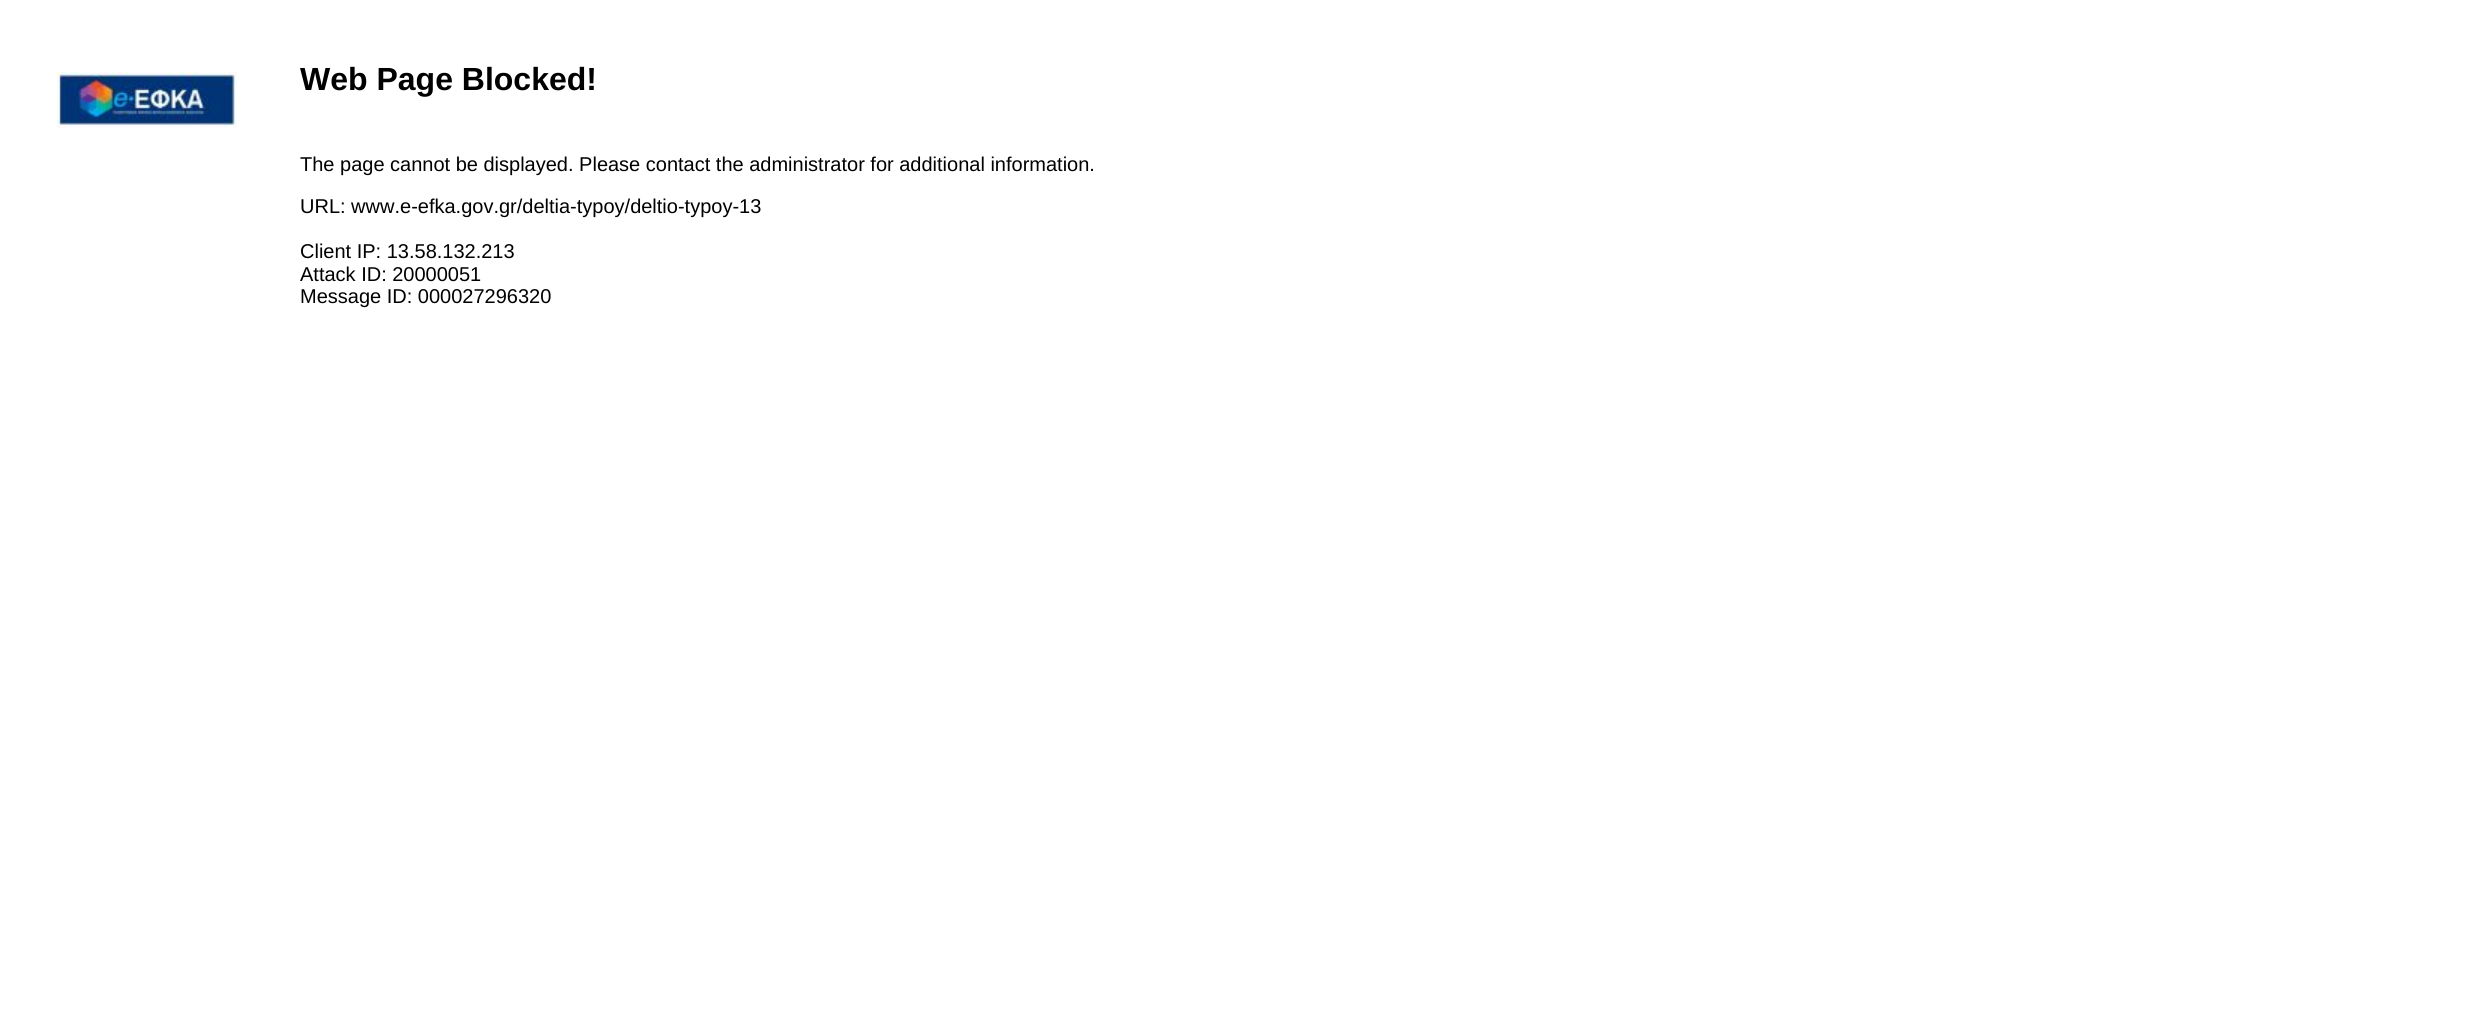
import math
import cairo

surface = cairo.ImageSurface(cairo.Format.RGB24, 2478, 1035)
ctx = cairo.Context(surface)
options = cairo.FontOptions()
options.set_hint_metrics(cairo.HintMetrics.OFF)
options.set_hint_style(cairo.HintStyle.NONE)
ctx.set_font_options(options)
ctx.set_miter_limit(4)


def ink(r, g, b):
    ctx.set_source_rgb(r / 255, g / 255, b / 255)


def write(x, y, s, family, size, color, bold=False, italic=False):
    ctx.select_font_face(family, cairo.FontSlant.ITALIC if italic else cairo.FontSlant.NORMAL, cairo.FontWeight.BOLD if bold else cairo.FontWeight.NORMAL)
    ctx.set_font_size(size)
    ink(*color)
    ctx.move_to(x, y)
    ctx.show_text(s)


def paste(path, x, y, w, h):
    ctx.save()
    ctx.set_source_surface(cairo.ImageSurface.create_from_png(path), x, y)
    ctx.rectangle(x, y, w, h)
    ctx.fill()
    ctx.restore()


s1 = dict(family="Liberation Sans", size=32, color=(0, 0, 0), bold=True)
s2 = dict(family="Liberation Sans", size=20, color=(0, 0, 0))

ink(255, 255, 255)
ctx.paint()
paste("pic1.png", 57, 72, 180, 56)
write(300, 90, "Web Page Blocked!", **s1)
write(300, 171, "The page cannot be displayed. Please contact the administrator for additional information.", **s2)
write(300, 213, "URL: www.e-efka.gov.gr/deltia-typoy/deltio-typoy-13", **s2)
write(300, 258, "Client IP: 13.58.132.213", **s2)
write(300, 281, "Attack ID: 20000051", **s2)
write(300, 303, "Message ID: 000027296320", **s2)
surface.write_to_png("screenshot.png")
